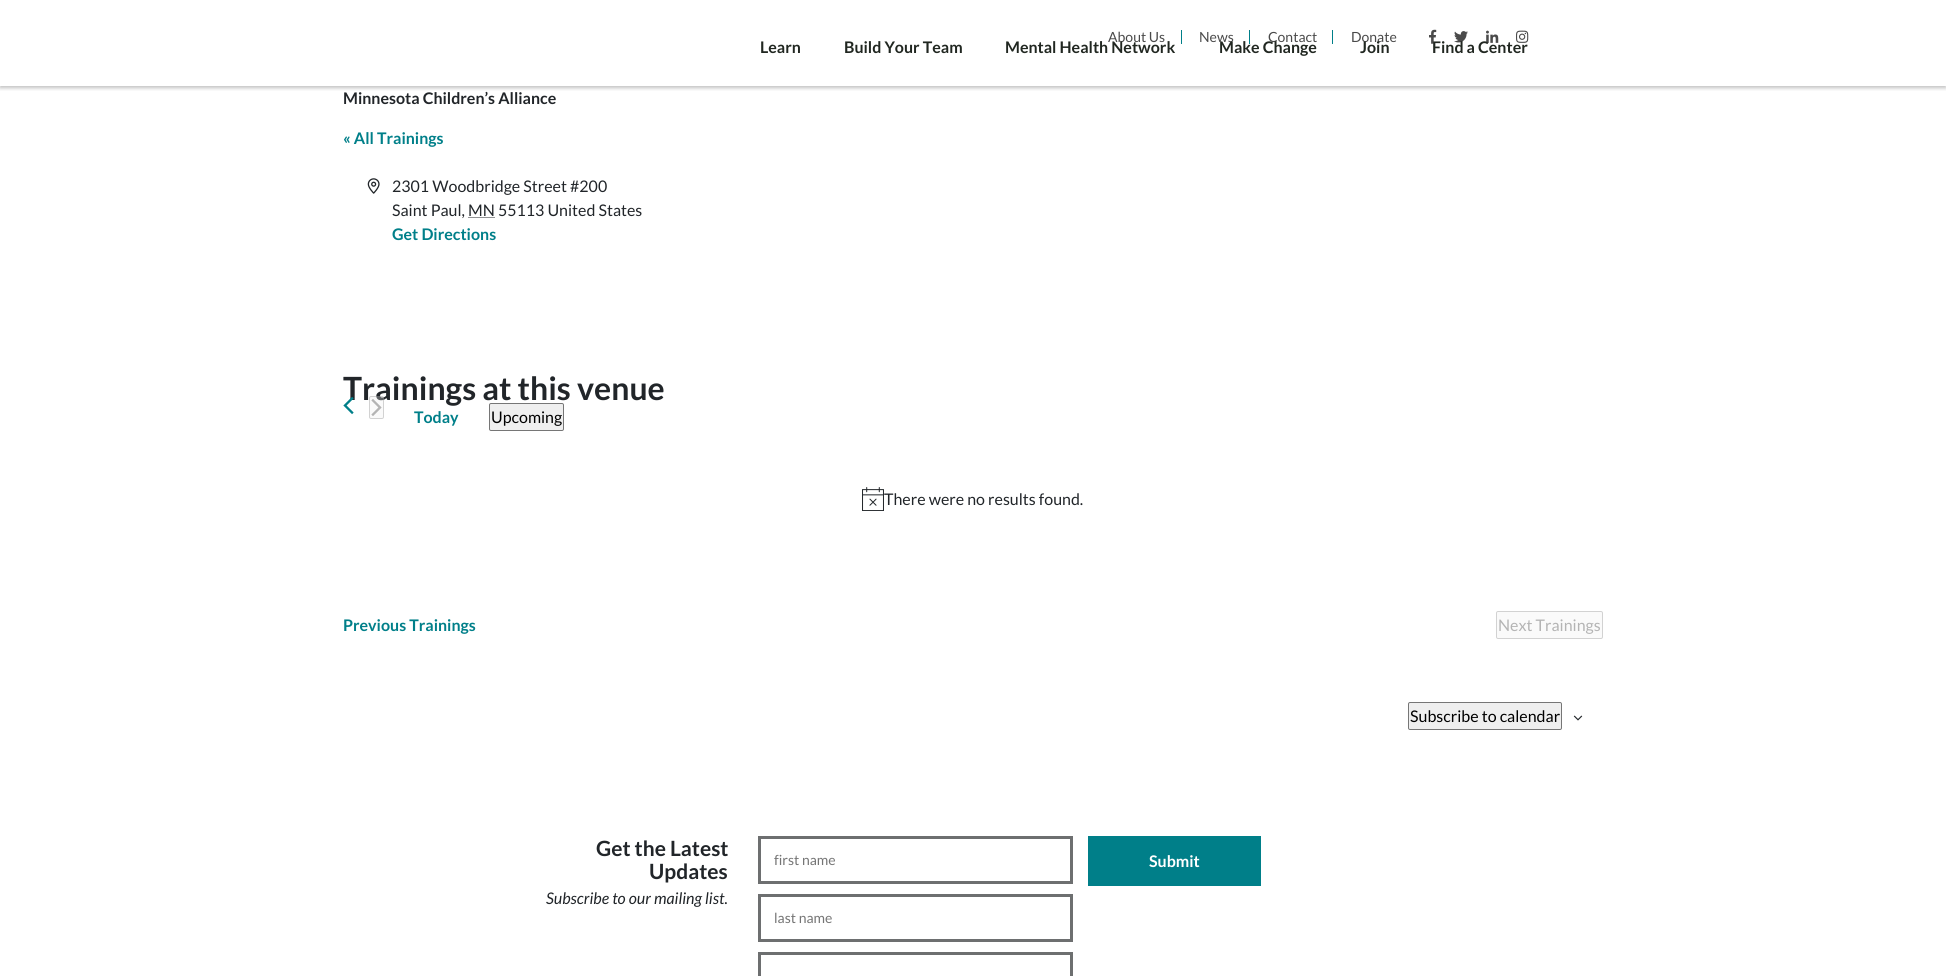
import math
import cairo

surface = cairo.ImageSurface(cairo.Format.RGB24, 1946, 976)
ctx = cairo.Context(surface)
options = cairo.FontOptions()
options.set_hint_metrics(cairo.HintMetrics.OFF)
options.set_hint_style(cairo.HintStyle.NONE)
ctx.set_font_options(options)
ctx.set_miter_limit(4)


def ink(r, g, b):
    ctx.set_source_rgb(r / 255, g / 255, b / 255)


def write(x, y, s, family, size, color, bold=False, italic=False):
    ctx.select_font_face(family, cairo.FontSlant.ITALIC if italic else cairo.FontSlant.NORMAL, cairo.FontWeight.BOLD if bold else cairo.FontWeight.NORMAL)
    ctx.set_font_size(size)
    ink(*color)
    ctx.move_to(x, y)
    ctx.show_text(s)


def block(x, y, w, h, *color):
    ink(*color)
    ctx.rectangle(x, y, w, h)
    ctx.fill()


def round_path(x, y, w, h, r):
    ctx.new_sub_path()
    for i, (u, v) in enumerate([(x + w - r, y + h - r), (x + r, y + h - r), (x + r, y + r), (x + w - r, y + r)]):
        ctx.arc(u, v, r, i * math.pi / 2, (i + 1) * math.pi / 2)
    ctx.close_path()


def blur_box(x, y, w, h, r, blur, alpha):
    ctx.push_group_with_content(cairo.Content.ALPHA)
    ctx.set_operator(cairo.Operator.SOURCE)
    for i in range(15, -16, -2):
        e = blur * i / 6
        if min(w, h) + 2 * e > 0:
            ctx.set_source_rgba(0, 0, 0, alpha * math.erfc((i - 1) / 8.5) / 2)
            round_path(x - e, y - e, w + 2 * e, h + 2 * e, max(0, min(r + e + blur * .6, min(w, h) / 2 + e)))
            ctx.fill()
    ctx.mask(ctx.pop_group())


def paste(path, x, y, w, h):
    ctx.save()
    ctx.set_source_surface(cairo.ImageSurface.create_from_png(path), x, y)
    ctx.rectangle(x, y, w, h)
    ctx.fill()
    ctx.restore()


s1 = dict(family="Lato", size=14, color=(74, 74, 74))
s2 = dict(family="Lato", size=16, color=(33, 39, 33), bold=True)
s3 = dict(family="Lato", size=16, color=(33, 37, 41), bold=True)
s4 = dict(family="Lato", size=16, color=(0, 127, 137), bold=True)
s5 = dict(family="Lato", size=16, color=(33, 37, 41))
s6 = dict(family="Lato", size=32, color=(33, 37, 41), bold=True)
s7 = dict(family="Lato", size=16, color=(0, 0, 0))
s8 = dict(family="Lato", size=16, color=(180, 180, 180))
s9 = dict(family="Lato", size=21, color=(33, 37, 41), bold=True)
s10 = dict(family="Lato", size=16, color=(33, 37, 41), italic=True)
s11 = dict(family="Lato", size=14, color=(117, 117, 117))
s12 = dict(family="Lato", size=16, color=(255, 255, 255), bold=True)

ink(255, 255, 255)
ctx.paint()
ctx.save()
ctx.rectangle(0, 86, 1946, 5)
ctx.clip()
ink(0, 0, 0)
blur_box(0, 2, 1946, 86, 0, 2, 0.25)
ctx.restore()
block(1181, 30, 1, 14, 0, 127, 137)
write(1108, 42, "About Us", **s1)
block(1249, 30, 1, 14, 0, 127, 137)
write(1199, 42, "News", **s1)
block(1332, 30, 1, 14, 0, 127, 137)
write(1268, 42, "Contact", **s1)
write(1351, 42, "Donate", **s1)
paste("pic1.png", 1429, 29, 8, 15)
paste("pic2.png", 1454, 31, 14, 12)
paste("pic3.png", 1486, 30, 13, 13)
paste("pic4.png", 1516, 30, 13, 13)
write(760, 53, "Learn", **s2)
write(844, 53, "Build Your Team", **s2)
write(1005, 53, "Mental Health Network", **s2)
write(1219, 53, "Make Change", **s2)
write(1360, 53, "Join", **s2)
write(1432, 53, "Find a Center", **s2)
write(343, 104, "Minnesota Children’s Alliance", **s3)
write(343, 144, "« All Trainings", **s4)
paste("pic5.png", 367, 178, 13, 16)
write(392, 192, "2301 Woodbridge Street #200", **s5)
write(392, 216, "Saint Paul, MN 55113 United States", **s5)
ctx.new_path()
ctx.move_to(468.5, 217.5)
ctx.line_to(495, 217.5)
ctx.set_line_width(1)
ctx.set_dash([1, 1])
ctx.stroke()
write(392, 240, "Get Directions", **s4)
write(343, 400, "Trainings at this venue", **s6)
paste("pic6.png", 343, 397, 11, 18)
ctx.set_source_rgba(0.937, 0.937, 0.937, 0.3)
round_path(369, 396, 15, 23, 2)
ctx.fill()
round_path(369.5, 396.5, 14, 22, 1.5)
ctx.set_source_rgba(0.463, 0.463, 0.463, 0.3)
ctx.set_dash([])
ctx.stroke()
paste("pic7.png", 371, 399, 11, 17)
write(414, 423, "Today", **s4)
ink(239, 239, 239)
round_path(489.5, 403.5, 74, 27, 1.5)
ctx.fill_preserve()
ink(118, 118, 118)
ctx.stroke()
write(491, 423, "Upcoming", **s7)
paste("pic8.png", 862, 487, 22, 24)
write(884, 505, "There were no results found.", **s5)
write(343, 631, "Previous Trainings", **s4)
ink(250, 250, 250)
round_path(1496.5, 611.5, 106, 27, 1.5)
ctx.fill_preserve()
ink(210, 210, 210)
ctx.stroke()
write(1498, 631, "Next Trainings", **s8)
ink(239, 239, 239)
round_path(1408.5, 702.5, 153, 27, 1.5)
ctx.fill_preserve()
ink(118, 118, 118)
ctx.stroke()
write(1410, 722, "Subscribe to calendar", **s7)
paste("pic9.png", 1573, 715, 10, 6)
write(596, 856, "Get the Latest", **s9)
write(649, 879, "Updates", **s9)
write(546, 904, "Subscribe to our mailing list.", **s10)
ctx.rectangle(759.5, 837.5, 312, 45)
ink(109, 111, 112)
ctx.set_line_width(3)
ctx.stroke()
write(774, 865, "first name", **s11)
ctx.rectangle(759.5, 895.5, 312, 45)
ink(109, 111, 112)
ctx.stroke()
write(774, 923, "last name", **s11)
ctx.rectangle(759.5, 953.5, 312, 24)
ink(109, 111, 112)
ctx.stroke()
block(1088, 836, 173, 50, 0, 127, 137)
write(1149, 867, "Submit", **s12)
surface.write_to_png("screenshot.png")
